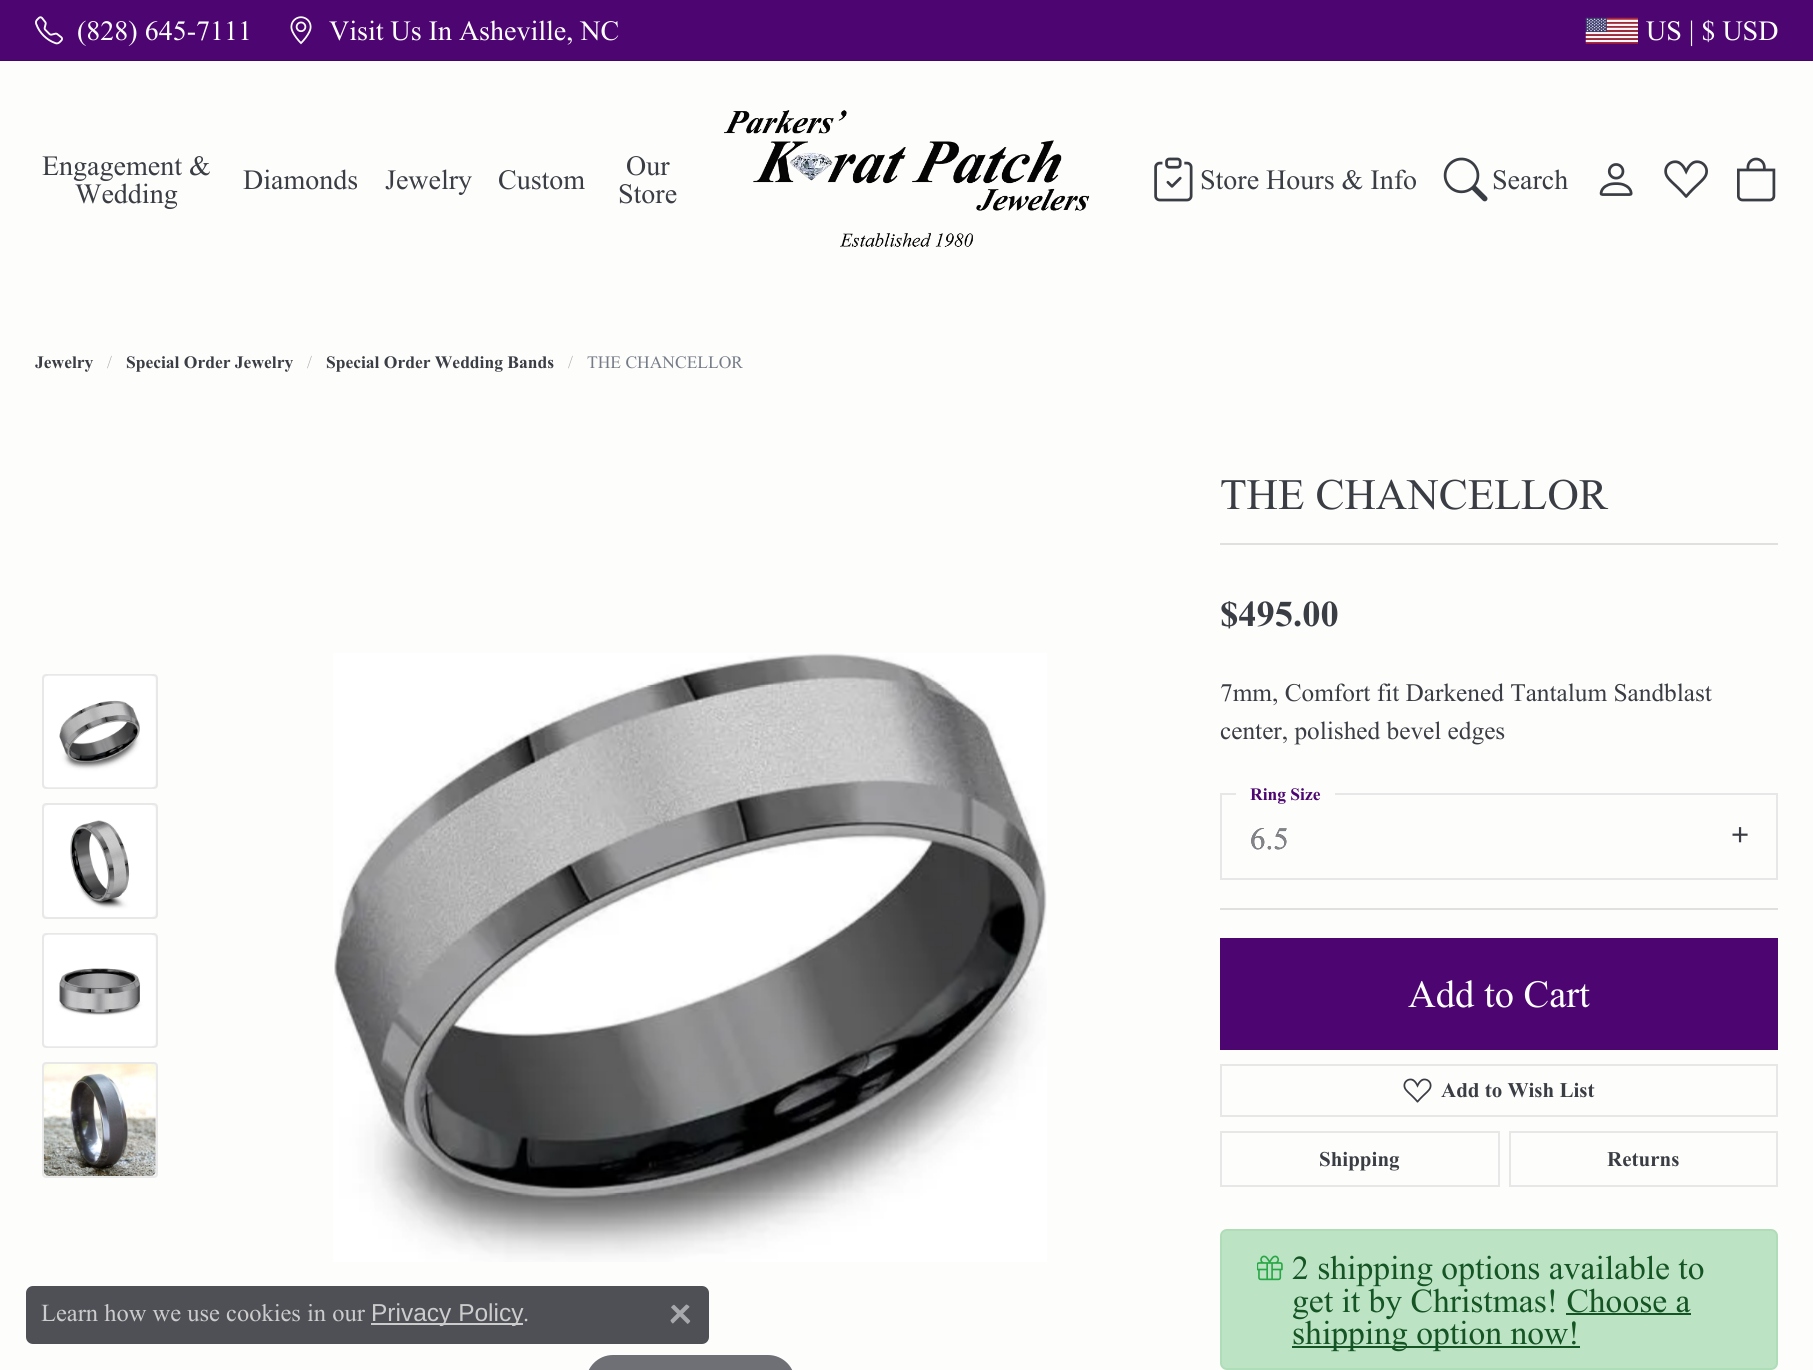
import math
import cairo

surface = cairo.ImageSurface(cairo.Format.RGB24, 1813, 1370)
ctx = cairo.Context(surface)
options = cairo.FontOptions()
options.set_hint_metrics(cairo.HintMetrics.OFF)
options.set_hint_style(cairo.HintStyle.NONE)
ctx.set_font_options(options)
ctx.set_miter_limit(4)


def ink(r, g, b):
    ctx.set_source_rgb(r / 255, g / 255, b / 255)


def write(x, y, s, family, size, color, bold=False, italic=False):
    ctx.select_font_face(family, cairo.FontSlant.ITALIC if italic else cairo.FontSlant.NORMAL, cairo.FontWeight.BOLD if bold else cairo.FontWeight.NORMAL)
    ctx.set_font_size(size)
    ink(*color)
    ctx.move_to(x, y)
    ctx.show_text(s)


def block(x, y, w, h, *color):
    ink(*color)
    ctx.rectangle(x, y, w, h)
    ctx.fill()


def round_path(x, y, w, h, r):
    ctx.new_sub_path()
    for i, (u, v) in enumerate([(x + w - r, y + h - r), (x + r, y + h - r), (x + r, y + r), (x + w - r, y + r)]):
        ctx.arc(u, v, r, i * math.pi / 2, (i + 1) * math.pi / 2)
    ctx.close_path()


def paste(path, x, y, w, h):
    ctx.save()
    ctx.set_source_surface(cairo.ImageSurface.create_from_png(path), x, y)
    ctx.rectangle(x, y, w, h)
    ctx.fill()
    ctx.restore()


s1 = dict(family="Times New Roman", size=28, color=(255, 255, 255))
s2 = dict(family="Times New Roman", size=28, color=(58, 61, 67))
s3 = dict(family="Times New Roman", size=17.5, color=(58, 61, 67), bold=True)
s4 = dict(family="Times New Roman", size=17.5, color=(175, 175, 175))
s5 = dict(family="Times New Roman", size=17.5, color=(117, 123, 135))
s6 = dict(family="Times New Roman", size=43.5, color=(58, 61, 67))
s7 = dict(family="Times New Roman", size=36.5, color=(58, 61, 67), bold=True)
s8 = dict(family="Times New Roman", size=25.3, color=(58, 61, 67))
s9 = dict(family="Times New Roman", size=17.5, color=(77, 6, 113), bold=True)
s10 = dict(family="Times New Roman", size=31, color=(58, 61, 67))
s11 = dict(family="Liberation Sans", size=31, color=(58, 61, 67))
s12 = dict(family="Times New Roman", size=31, color=(130, 132, 136))
s13 = dict(family="Times New Roman", size=38.5, color=(255, 255, 255))
s14 = dict(family="Times New Roman", size=21, color=(58, 61, 67), bold=True)
s15 = dict(family="Times New Roman", size=33.6, color=(20, 85, 35))
s16 = dict(family="Times New Roman", size=24.5, color=(204, 204, 204))
s17 = dict(family="Liberation Sans", size=24.5, color=(204, 204, 204))

ink(77, 6, 113)
ctx.paint()
block(0, 60, 1813, 1, 69, 5, 102)
paste("pic1.png", 35, 16, 28, 29)
write(77, 40, "(828) 645-7111", **s1)
paste("pic2.png", 290, 16, 22, 29)
write(329, 40, "Visit Us In Asheville, NC", **s1)
paste("pic3.png", 1585, 17, 53, 27)
write(1646, 40, "US | $ USD", **s1)
block(0, 61, 1813, 1309, 253, 253, 252)
paste("pic4.png", 724, 110, 366, 137)
write(42, 175, "Engagement &", **s2)
write(75, 203, "Wedding", **s2)
write(243, 189, "Diamonds", **s2)
write(385, 189, "Jewelry", **s2)
write(498, 189, "Custom", **s2)
write(626, 175, "Our", **s2)
write(618, 203, "Store", **s2)
paste("pic5.png", 1154, 157, 39, 45)
write(1200, 189, "Store Hours & Info", **s2)
paste("pic6.png", 1443, 157, 45, 45)
write(1492, 189, "Search", **s2)
paste("pic7.png", 1599, 163, 34, 33)
paste("pic8.png", 1664, 160, 44, 38)
paste("pic9.png", 1737, 157, 39, 45)
write(35, 368, "Jewelry", **s3)
write(107, 368, "/", **s4)
write(126, 368, "Special Order Jewelry", **s3)
write(307, 368, "/", **s4)
write(326, 368, "Special Order Wedding Bands", **s3)
write(568, 368, "/", **s4)
write(587, 368, "THE CHANCELLOR", **s5)
ink(246, 246, 246)
round_path(43, 675, 114, 113, 3)
ctx.fill_preserve()
ink(232, 232, 233)
ctx.stroke()
paste("pic10.png", 44, 675, 112, 113)
ink(246, 246, 246)
round_path(43, 804, 114, 114, 3)
ctx.fill_preserve()
ink(232, 232, 233)
ctx.stroke()
paste("pic11.png", 44, 805, 112, 112)
ink(246, 246, 246)
round_path(43, 934, 114, 113, 3)
ctx.fill_preserve()
ink(232, 232, 233)
ctx.stroke()
paste("pic12.png", 44, 934, 112, 113)
ink(246, 246, 246)
round_path(43, 1063, 114, 114, 3)
ctx.fill_preserve()
ink(232, 232, 233)
ctx.stroke()
paste("pic13.png", 43, 1064, 113, 112)
paste("pic14.png", 333, 653, 714, 609)
ink(110, 112, 118)
round_path(586, 1355, 209, 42, 27)
ctx.fill()
write(1220, 509, "THE CHANCELLOR", **s6)
block(1220, 543, 558, 2, 224, 224, 223)
write(1220, 626, "$495.00", **s7)
write(1220, 701, "7mm, Comfort fit Darkened Tantalum Sandblast", **s8)
write(1220, 739, "center, polished bevel edges", **s8)
ctx.rectangle(1221, 794, 556, 85)
ink(231, 231, 231)
ctx.stroke()
block(1236, 793, 99, 2, 253, 253, 252)
write(1250, 800, "Ring Size", **s9)
write(1250, 849, "6.5", **s10)
write(1731, 845, "+", **s11)
write(1250, 849, "6.5", **s12)
block(1220, 908, 558, 2, 224, 224, 223)
block(1220, 938, 558, 112, 77, 6, 113)
write(1408, 1007, "Add to Cart", **s13)
ctx.rectangle(1221, 1065, 556, 51)
ink(231, 231, 231)
ctx.stroke()
paste("pic15.png", 1403, 1078, 29, 25)
write(1441, 1097, "Add to Wish List", **s14)
ctx.rectangle(1221, 1132, 278, 54)
ink(231, 231, 231)
ctx.stroke()
write(1319, 1166, "Shipping", **s14)
ctx.rectangle(1510, 1132, 267, 54)
ink(231, 231, 231)
ctx.stroke()
write(1607, 1166, "Returns", **s14)
ink(189, 227, 197)
round_path(1220, 1229, 558, 141, 7)
ctx.fill()
round_path(1221, 1230, 556, 139, 6)
ctx.set_source_rgba(0.157, 0.655, 0.271, 0.1)
ctx.stroke()
paste("pic16.png", 1257, 1255, 26, 26)
write(1292, 1279, "2 shipping options available to", **s15)
write(1292, 1312, "get it by Christmas! Choose a", **s15)
block(1292, 1346, 288, 2, 20, 85, 35)
write(1292, 1344, "shipping option now!", **s15)
block(1566, 1313, 125, 2, 20, 85, 35)
ink(78, 80, 86)
round_path(26, 1286, 683, 58, 7)
ctx.fill()
write(41, 1321, "Learn how we use cookies in our", **s16)
block(371, 1323, 152, 2, 204, 204, 204)
write(371, 1321, "Privacy Policy", **s17)
write(523, 1321, ".", **s16)
paste("pic17.png", 670, 1304, 21, 20)
surface.write_to_png("screenshot.png")
